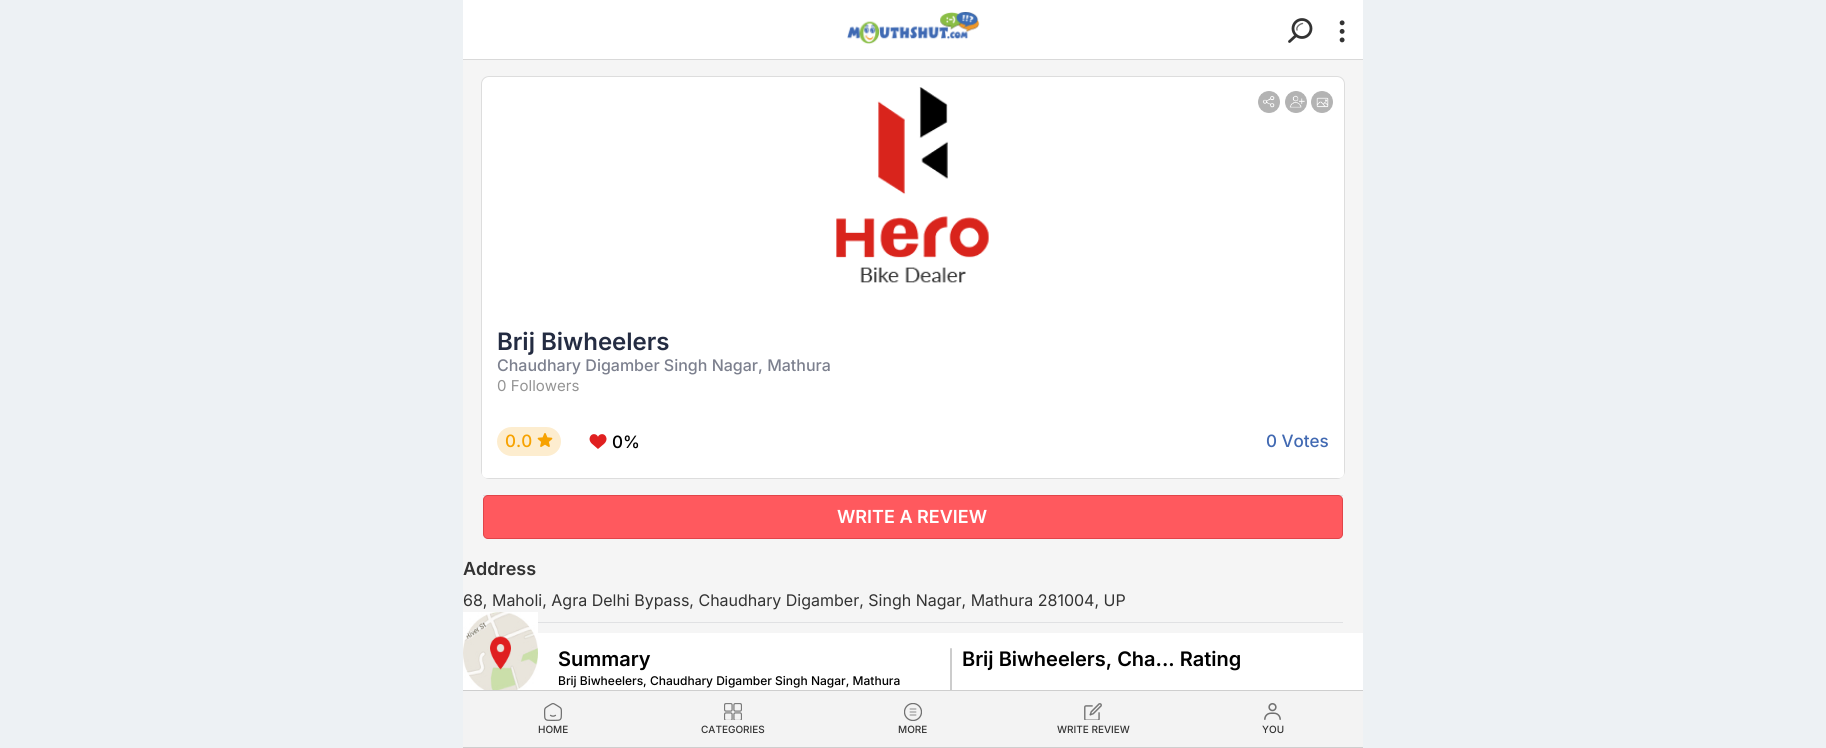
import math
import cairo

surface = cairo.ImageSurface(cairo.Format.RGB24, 1826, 748)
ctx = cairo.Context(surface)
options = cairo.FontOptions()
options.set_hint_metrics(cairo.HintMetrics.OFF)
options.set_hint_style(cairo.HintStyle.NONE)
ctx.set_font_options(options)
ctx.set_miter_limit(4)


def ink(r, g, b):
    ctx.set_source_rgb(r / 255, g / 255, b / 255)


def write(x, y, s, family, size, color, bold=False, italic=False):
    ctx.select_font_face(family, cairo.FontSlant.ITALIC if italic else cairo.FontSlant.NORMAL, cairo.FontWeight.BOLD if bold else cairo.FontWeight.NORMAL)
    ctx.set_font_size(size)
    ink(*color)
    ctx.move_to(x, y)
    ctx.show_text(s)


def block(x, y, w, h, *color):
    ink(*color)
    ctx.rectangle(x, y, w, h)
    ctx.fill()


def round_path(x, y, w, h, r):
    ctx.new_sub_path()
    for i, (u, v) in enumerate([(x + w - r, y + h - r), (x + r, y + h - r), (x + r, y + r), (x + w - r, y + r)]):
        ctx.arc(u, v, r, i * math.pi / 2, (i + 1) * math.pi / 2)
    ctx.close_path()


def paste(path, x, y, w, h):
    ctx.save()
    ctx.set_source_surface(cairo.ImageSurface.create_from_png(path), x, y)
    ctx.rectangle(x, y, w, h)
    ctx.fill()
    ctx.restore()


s1 = dict(family="Inter SemiBold", size=24, color=(36, 44, 66))
s2 = dict(family="Inter Medium", size=16, color=(124, 128, 142))
s3 = dict(family="Inter", size=15, color=(148, 148, 148))
s4 = dict(family="Inter Medium", size=17, color=(247, 162, 0))
s5 = dict(family="Inter Medium", size=17, color=(0, 0, 0))
s6 = dict(family="Inter Medium", size=17, color=(65, 105, 178))
s7 = dict(family="Inter SemiBold", size=18, color=(255, 255, 255))
s8 = dict(family="Inter SemiBold", size=18, color=(51, 51, 51))
s9 = dict(family="Inter", size=16, color=(51, 51, 51))
s10 = dict(family="Inter SemiBold", size=20, color=(0, 0, 0))
s11 = dict(family="Inter Medium", size=12, color=(0, 0, 0))
s12 = dict(family="Inter Medium", size=10, color=(51, 51, 51))

ink(237, 241, 244)
ctx.paint()
block(463, 0, 900, 59, 255, 255, 255)
block(463, 59, 900, 1, 217, 217, 217)
paste("pic1.png", 847, 12, 133, 32)
ctx.arc(1302, 28.5, 9, 0, 2 * math.pi)
ink(51, 51, 51)
ctx.set_line_width(2.8)
ctx.stroke()
paste("pic2.png", 1339, 20, 6, 23)
ctx.new_path()
ctx.move_to(1302.5, 23.5)
ctx.curve_to(1299.5, 24, 1296, 27, 1297, 30)
ink(112, 112, 112)
ctx.set_line_width(1.4)
ctx.set_line_cap(cairo.LineCap.ROUND)
ctx.stroke()
ctx.new_path()
ctx.move_to(1289.5, 41.5)
ctx.line_to(1296, 35.5)
ink(51, 51, 51)
ctx.set_line_width(2.8)
ctx.set_line_join(cairo.LineJoin.ROUND)
ctx.stroke()
block(463, 60, 900, 573, 245, 245, 245)
ink(255, 255, 255)
round_path(481.5, 76.5, 863, 402, 7.5)
ctx.fill_preserve()
ink(221, 221, 221)
ctx.set_line_width(1)
ctx.set_line_cap(cairo.LineCap.BUTT)
ctx.set_line_join(cairo.LineJoin.MITER)
ctx.stroke()
paste("pic3.png", 1258, 91, 22, 22)
paste("pic4.png", 1285, 91, 22, 22)
paste("pic5.png", 1311, 91, 22, 22)
paste("pic6.png", 836, 87, 153, 196)
ink(255, 255, 255)
ctx.new_path()
ctx.move_to(482, 307)
ctx.line_to(1344, 307)
ctx.line_to(1344, 473)
ctx.curve_to(1344, 476, 1342, 478, 1339, 478)
ctx.line_to(487, 478)
ctx.curve_to(484, 478, 482, 476, 482, 473)
ctx.close_path()
ctx.fill()
write(497, 350, "Brij Biwheelers", **s1)
write(497, 371, "Chaudhary Digamber Singh Nagar, Mathura", **s2)
write(497, 391, "0 Followers", **s3)
ink(253, 237, 207)
round_path(497, 427, 64, 29, 14.5)
ctx.fill()
write(505, 447, "0.0", **s4)
paste("pic7.png", 537, 433, 16, 14)
paste("pic8.png", 589, 434, 18, 15)
write(612, 448, "0%", **s5)
write(1266, 447, "0 Votes", **s6)
block(483, 495, 860, 1, 224, 225, 227)
ink(255, 89, 94)
round_path(483.5, 495.5, 859, 43, 4.5)
ctx.fill_preserve()
ink(225, 68, 73)
ctx.stroke()
write(837, 523, "WRITE A REVIEW", **s7)
write(463, 575, "Address", **s8)
write(463, 606, "68, Maholi, Agra Delhi Bypass, Chaudhary Digamber, Singh Nagar, Mathura 281004, UP", **s9)
paste("pic9.png", 463, 612, 75, 78)
block(538, 622, 805, 1, 224, 225, 227)
block(538, 633, 825, 57, 255, 255, 255)
write(558, 666, "Summary", **s10)
write(558, 685, "Brij Biwheelers, Chaudhary Digamber Singh Nagar, Mathura", **s11)
ink(204, 204, 204)
round_path(950, 648, 2, 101, 1)
ctx.fill()
write(962, 666, "Brij Biwheelers, Cha... Rating", **s10)
block(463, 691, 900, 56, 243, 243, 243)
block(463, 690, 900, 1, 206, 206, 206)
block(463, 747, 900, 1, 206, 206, 206)
paste("pic10.png", 544, 703, 18, 18)
write(538, 733, "HOME", **s12)
paste("pic11.png", 724, 703, 18, 17)
write(701, 733, "CATEGORIES", **s12)
paste("pic12.png", 904, 703, 18, 18)
write(898, 733, "MORE", **s12)
paste("pic13.png", 1084, 703, 18, 17)
write(1057, 733, "WRITE REVIEW", **s12)
paste("pic14.png", 1264, 703, 17, 17)
write(1262, 733, "YOU", **s12)
surface.write_to_png("screenshot.png")
